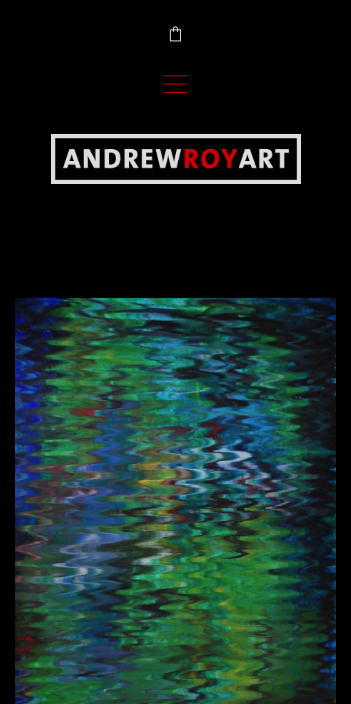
import math
import cairo

surface = cairo.ImageSurface(cairo.Format.RGB24, 351, 704)
ctx = cairo.Context(surface)
options = cairo.FontOptions()
options.set_hint_metrics(cairo.HintMetrics.OFF)
options.set_hint_style(cairo.HintStyle.NONE)
ctx.set_font_options(options)
ctx.set_miter_limit(4)


def ink(r, g, b):
    ctx.set_source_rgb(r / 255, g / 255, b / 255)


def write(x, y, s, family, size, color, bold=False, italic=False):
    ctx.select_font_face(family, cairo.FontSlant.ITALIC if italic else cairo.FontSlant.NORMAL, cairo.FontWeight.BOLD if bold else cairo.FontWeight.NORMAL)
    ctx.set_font_size(size)
    ink(*color)
    ctx.move_to(x, y)
    ctx.show_text(s)


def paste(path, x, y, w, h):
    ctx.save()
    ctx.set_source_surface(cairo.ImageSurface.create_from_png(path), x, y)
    ctx.rectangle(x, y, w, h)
    ctx.fill()
    ctx.restore()


s1 = dict(family="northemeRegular", size=26, color=(221, 221, 221))
s2 = dict(family="northemeRegular", size=34, color=(204, 0, 0))

ink(0, 0, 0)
ctx.paint()
write(167, 44, "$", **s1)
write(163, 96, ",", **s2)
paste("pic1.png", 51, 134, 250, 50)
paste("pic2.png", 15, 298, 321, 406)
surface.write_to_png("screenshot.png")
